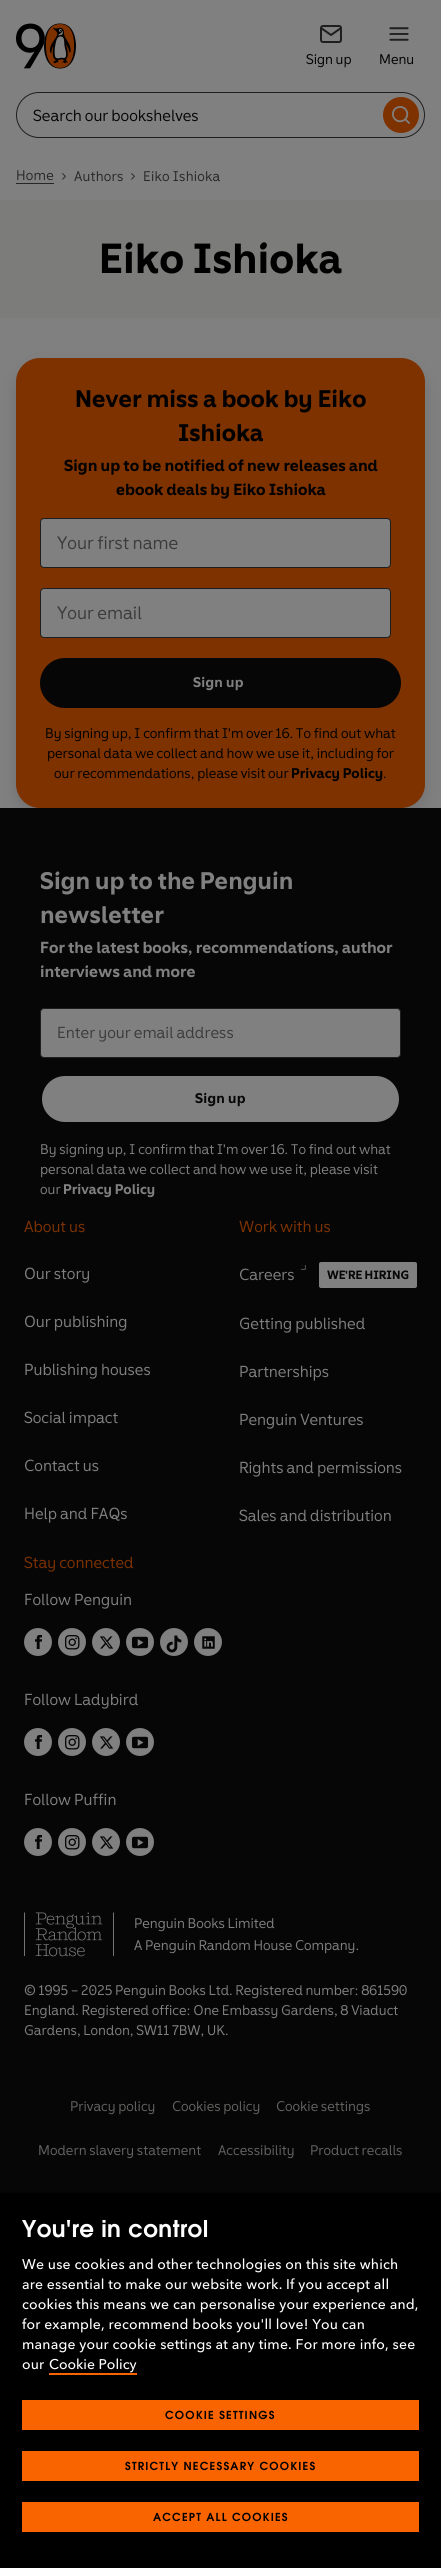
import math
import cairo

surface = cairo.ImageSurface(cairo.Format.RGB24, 441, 2568)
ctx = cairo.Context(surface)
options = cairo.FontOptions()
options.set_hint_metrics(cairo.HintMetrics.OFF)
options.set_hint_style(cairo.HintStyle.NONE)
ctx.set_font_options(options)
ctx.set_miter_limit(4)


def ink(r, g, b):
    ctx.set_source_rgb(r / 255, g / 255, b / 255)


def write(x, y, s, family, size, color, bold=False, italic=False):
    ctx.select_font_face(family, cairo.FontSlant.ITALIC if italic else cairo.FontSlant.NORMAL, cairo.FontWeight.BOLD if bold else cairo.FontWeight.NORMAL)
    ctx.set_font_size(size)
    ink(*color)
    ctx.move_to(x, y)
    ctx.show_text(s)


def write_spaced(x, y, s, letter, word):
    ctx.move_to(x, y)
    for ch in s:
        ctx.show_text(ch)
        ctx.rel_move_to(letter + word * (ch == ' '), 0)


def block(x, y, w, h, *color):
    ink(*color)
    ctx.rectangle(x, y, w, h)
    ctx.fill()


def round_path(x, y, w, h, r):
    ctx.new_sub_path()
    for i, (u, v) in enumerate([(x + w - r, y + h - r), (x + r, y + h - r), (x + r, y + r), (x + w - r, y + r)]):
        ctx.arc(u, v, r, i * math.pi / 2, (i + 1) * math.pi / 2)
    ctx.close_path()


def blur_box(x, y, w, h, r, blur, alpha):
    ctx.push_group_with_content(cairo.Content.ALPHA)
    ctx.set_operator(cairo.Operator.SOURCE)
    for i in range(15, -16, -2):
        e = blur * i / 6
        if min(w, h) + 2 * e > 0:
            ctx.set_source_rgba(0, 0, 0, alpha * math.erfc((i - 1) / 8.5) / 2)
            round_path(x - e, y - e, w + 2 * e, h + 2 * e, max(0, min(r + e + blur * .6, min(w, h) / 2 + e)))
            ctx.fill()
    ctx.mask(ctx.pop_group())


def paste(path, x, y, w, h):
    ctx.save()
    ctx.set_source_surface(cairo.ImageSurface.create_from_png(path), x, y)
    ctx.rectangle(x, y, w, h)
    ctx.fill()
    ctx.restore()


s1 = dict(family="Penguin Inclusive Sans", size=14, color=(0, 0, 0))
s2 = dict(family="Penguin Inclusive Sans", size=16, color=(6, 6, 6))
s3 = dict(family="Penguin Inclusive Sans", size=42, color=(0, 0, 0), bold=True)
s4 = dict(family="Penguin Inclusive Sans", size=24, color=(0, 0, 0), bold=True)
s5 = dict(family="Penguin Inclusive Sans", size=16, color=(0, 0, 0), bold=True)
s6 = dict(family="Penguin Inclusive Sans", size=18, color=(59, 59, 59))
s7 = dict(family="Liberation Sans", size=14, color=(0, 0, 0))
s8 = dict(family="Penguin Inclusive Sans", size=14, color=(0, 0, 0), bold=True)
s9 = dict(family="Penguin Inclusive Sans", size=24, color=(128, 128, 128), bold=True)
s10 = dict(family="Penguin Inclusive Sans", size=16, color=(128, 128, 128), bold=True)
s11 = dict(family="Penguin Inclusive Sans", size=16, color=(59, 59, 59))
s12 = dict(family="Penguin Inclusive Sans", size=14, color=(128, 128, 128))
s13 = dict(family="Liberation Sans", size=14, color=(128, 128, 128))
s14 = dict(family="Penguin Inclusive Sans", size=14, color=(128, 128, 128), bold=True)
s15 = dict(family="Penguin Inclusive Sans", size=16, color=(125, 50, 0))
s16 = dict(family="Penguin Inclusive Sans", size=16, color=(128, 128, 128))
s17 = dict(family="Penguin Inclusive Sans", size=12, color=(6, 6, 6), bold=True)
s18 = dict(family="Liberation Sans", size=12, color=(6, 6, 6), bold=True)
s19 = dict(family="Penguin Inclusive Sans", size=14, color=(100, 99, 98))
s20 = dict(family="Avenir Next Medium", size=14, color=(255, 255, 255))

ink(128, 128, 128)
ctx.paint()
paste("pic1.png", 16, 23, 60, 46)
paste("pic2.png", 320, 25, 22, 18)
write(306, 64, "Sign up", **s1)
paste("pic3.png", 389, 27, 20, 14)
write(379, 64, "Menu", **s1)
round_path(16.5, 92.5, 408, 45, 22.5)
ink(30, 30, 30)
ctx.set_line_width(1)
ctx.stroke()
write(33, 121, "Search our bookshelves", **s2)
paste("pic4.png", 383, 97, 36, 36)
block(16, 183, 38, 1, 39, 39, 39)
ctx.set_font_size(14)
write_spaced(16, 180, "Home", 0.2, 0)
paste("pic5.png", 62, 173, 4, 7)
write_spaced(74, 181, "Authors", 0.2, 0)
paste("pic5.png", 131, 173, 4, 7)
write_spaced(143, 181, "Eiko Ishioka", 0.2, 0)
block(0, 200, 441, 118, 124, 124, 123)
write(99, 273, "Eiko Ishioka", **s3)
block(0, 808, 441, 1385, 6, 6, 6)
ctx.save()
ctx.rectangle(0, 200, 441, 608)
ctx.clip()
ink(6, 6, 6)
blur_box(16, 366, 409, 450, 24, 8, 0.12)
ctx.restore()
ink(125, 50, 0)
round_path(16, 358, 409, 450, 24)
ctx.fill()
write(75, 407, "Never miss a book by Eiko", **s4)
write(178, 441, "Ishioka", **s4)
write(64, 471, "Sign up to be notified of new releases and", **s5)
write(116, 495, "ebook deals by Eiko Ishioka", **s5)
ink(128, 128, 128)
round_path(40.5, 518.5, 350, 49, 3.5)
ctx.fill_preserve()
ink(30, 30, 30)
ctx.stroke()
write(57, 549, "Your first name", **s6)
ink(128, 128, 128)
round_path(40.5, 588.5, 350, 49, 3.5)
ctx.fill_preserve()
ink(30, 30, 30)
ctx.stroke()
write(57, 619, "Your email", **s6)
ink(6, 6, 6)
round_path(41, 659, 359, 48, 24)
ctx.fill_preserve()
ctx.set_line_width(2)
ctx.stroke()
ctx.select_font_face("Penguin Inclusive Sans", cairo.FontSlant.NORMAL, cairo.FontWeight.BOLD)
ctx.set_font_size(14)
ink(128, 128, 128)
write_spaced(193, 687, "Sign up", 0.2, 0)
write(45, 738, "By signing up, I confirm that I m over 16. To find out what", **s1)
write(228, 738, "'", **s7)
write(47, 758, "personal data we collect and how we use it, including for", **s1)
write(54, 778, "our recommendations, please visit our", **s1)
write(291, 778, "Privacy Policy", **s8)
write(383, 778, ".", **s1)
write(40, 889, "Sign up to the Penguin", **s9)
write(40, 923, "newsletter", **s9)
write(40, 953, "For the latest books, recommendations, author", **s10)
write(40, 977, "interviews and more", **s10)
round_path(40.5, 1008.5, 360, 49, 3.5)
ctx.fill_preserve()
ink(30, 30, 30)
ctx.set_line_width(1)
ctx.stroke()
write(57, 1038, "Enter your email address", **s11)
ink(128, 128, 128)
round_path(41, 1075, 359, 48, 24)
ctx.fill_preserve()
ink(6, 6, 6)
ctx.set_line_width(2)
ctx.stroke()
ctx.select_font_face("Penguin Inclusive Sans", cairo.FontSlant.NORMAL, cairo.FontWeight.BOLD)
ctx.set_font_size(14)
write_spaced(195, 1103, "Sign up", 0.2, 0)
write(40, 1154, "By signing up, I confirm that I m over 16. To find out what", **s12)
write(223, 1154, "'", **s13)
write(40, 1174, "personal data we collect and how we use it, please visit", **s12)
write(40, 1194, "our", **s12)
write(63, 1194, "Privacy Policy", **s14)
write(24, 1232, "About us", **s15)
write(24, 1279, "Our story", **s16)
write(24, 1327, "Our publishing", **s16)
write(24, 1375, "Publishing houses", **s16)
write(24, 1423, "Social impact", **s16)
write(24, 1471, "Contact us", **s16)
write(24, 1519, "Help and FAQs", **s16)
write(239, 1232, "Work with us", **s15)
paste("pic6.png", 301, 1265, 5, 5)
write(239, 1280, "Careers", **s16)
round_path(319, 1262, 98, 26, 2)
ctx.fill()
write(327, 1279, "WE", **s17)
write(345, 1279, "'", **s18)
write(348, 1279, "RE HIRING", **s17)
write(239, 1329, "Getting published", **s16)
write(239, 1377, "Partnerships", **s16)
write(239, 1425, "Penguin Ventures", **s16)
write(239, 1473, "Rights and permissions", **s16)
write(239, 1521, "Sales and distribution", **s16)
write(24, 1568, "Stay connected", **s15)
write(24, 1605, "Follow Penguin", **s16)
ctx.new_path()
ctx.arc(38, 1642, 14, 0, 2 * math.pi)
ctx.fill()
paste("pic7.png", 35, 1635, 7, 14)
ctx.arc(72, 1642, 14, 0, 2 * math.pi)
ctx.fill()
paste("pic8.png", 65, 1635, 15, 15)
ctx.arc(106, 1642, 14, 0, 2 * math.pi)
ctx.fill()
paste("pic9.png", 99, 1636, 15, 13)
ctx.arc(140, 1642, 14, 0, 2 * math.pi)
ctx.fill()
paste("pic10.png", 132, 1636, 16, 13)
ctx.arc(174, 1642, 14, 0, 2 * math.pi)
ctx.fill()
paste("pic11.png", 166, 1635, 16, 18)
ctx.arc(208, 1642, 14, 0, 2 * math.pi)
ctx.fill()
paste("pic12.png", 202, 1636, 13, 13)
write(24, 1705, "Follow Ladybird", **s16)
ctx.new_path()
ctx.arc(38, 1742, 14, 0, 2 * math.pi)
ctx.fill()
paste("pic7.png", 35, 1735, 7, 14)
ctx.arc(72, 1742, 14, 0, 2 * math.pi)
ctx.fill()
paste("pic8.png", 65, 1735, 15, 15)
ctx.arc(106, 1742, 14, 0, 2 * math.pi)
ctx.fill()
paste("pic9.png", 99, 1736, 15, 13)
ctx.arc(140, 1742, 14, 0, 2 * math.pi)
ctx.fill()
paste("pic10.png", 132, 1736, 16, 13)
write(24, 1805, "Follow Puffin", **s16)
ctx.new_path()
ctx.arc(38, 1842, 14, 0, 2 * math.pi)
ctx.fill()
paste("pic7.png", 35, 1835, 7, 14)
ctx.arc(72, 1842, 14, 0, 2 * math.pi)
ctx.fill()
paste("pic8.png", 65, 1835, 15, 15)
ctx.arc(106, 1842, 14, 0, 2 * math.pi)
ctx.fill()
paste("pic9.png", 99, 1836, 15, 13)
ctx.arc(140, 1842, 14, 0, 2 * math.pi)
ctx.fill()
paste("pic10.png", 132, 1836, 16, 13)
paste("pic13.png", 24, 1912, 90, 45)
write(134, 1928, "Penguin Books Limited", **s12)
write(134, 1950, "A Penguin Random House Company.", **s12)
write(24, 1995, "© 1995 – 2025 Penguin Books Ltd. Registered number: 861590", **s12)
write(24, 2015, "England. Registered office: One Embassy Gardens, 8 Viaduct", **s12)
write(24, 2035, "Gardens, London, SW11 7BW, UK.", **s12)
write(70, 2111, "Privacy policy", **s19)
write(172, 2111, "Cookies policy", **s19)
write(276, 2111, "Cookie settings", **s19)
write(38, 2155, "Modern slavery statement", **s19)
write(218, 2155, "Accessibility", **s19)
write(310, 2155, "Product recalls", **s19)
ink(0, 0, 0)
blur_box(0, 2193, 441, 375, 0, 9, 0.2)
block(0, 2193, 441, 375, 0, 0, 0)
ctx.select_font_face("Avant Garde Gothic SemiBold")
ctx.set_font_size(23)
ink(255, 255, 255)
write_spaced(22, 2237, "You're in control", 0.4, 0)
ctx.select_font_face("Avenir Next Medium")
ctx.set_font_size(14)
write_spaced(22, 2269, "We use cookies and other technologies on this site which", 0.17, 0)
write_spaced(22, 2289, "are essential to make our website work. If you accept all", 0.17, 0)
write_spaced(22, 2309, "cookies this means we can personalise your experience and,", 0.17, 0)
write_spaced(22, 2329, "for example, recommend books you'll love! You can", 0.17, 0)
write_spaced(22, 2349, "manage your cookie settings at any time. For more info, see", 0.17, 0)
write_spaced(22, 2369, "our", 0.17, 0)
write(49, 2369, "Cookie Policy", **s20)
block(49, 2373, 88, 2, 250, 100, 0)
block(22, 2400, 397, 30, 250, 100, 0)
ctx.select_font_face("Avant Garde Gothic SemiBold")
ctx.set_font_size(11)
ink(0, 0, 0)
write_spaced(165, 2419, "COOKIE SETTINGS", 1.2, 0)
block(22, 2451, 397, 30, 250, 100, 0)
ink(0, 0, 0)
write_spaced(125, 2470, "STRICTLY NECESSARY COOKIES", 1.2, 0)
block(22, 2502, 397, 30, 250, 100, 0)
ink(0, 0, 0)
write_spaced(153, 2521, "ACCEPT ALL COOKIES", 1.2, 0)
surface.write_to_png("screenshot.png")
